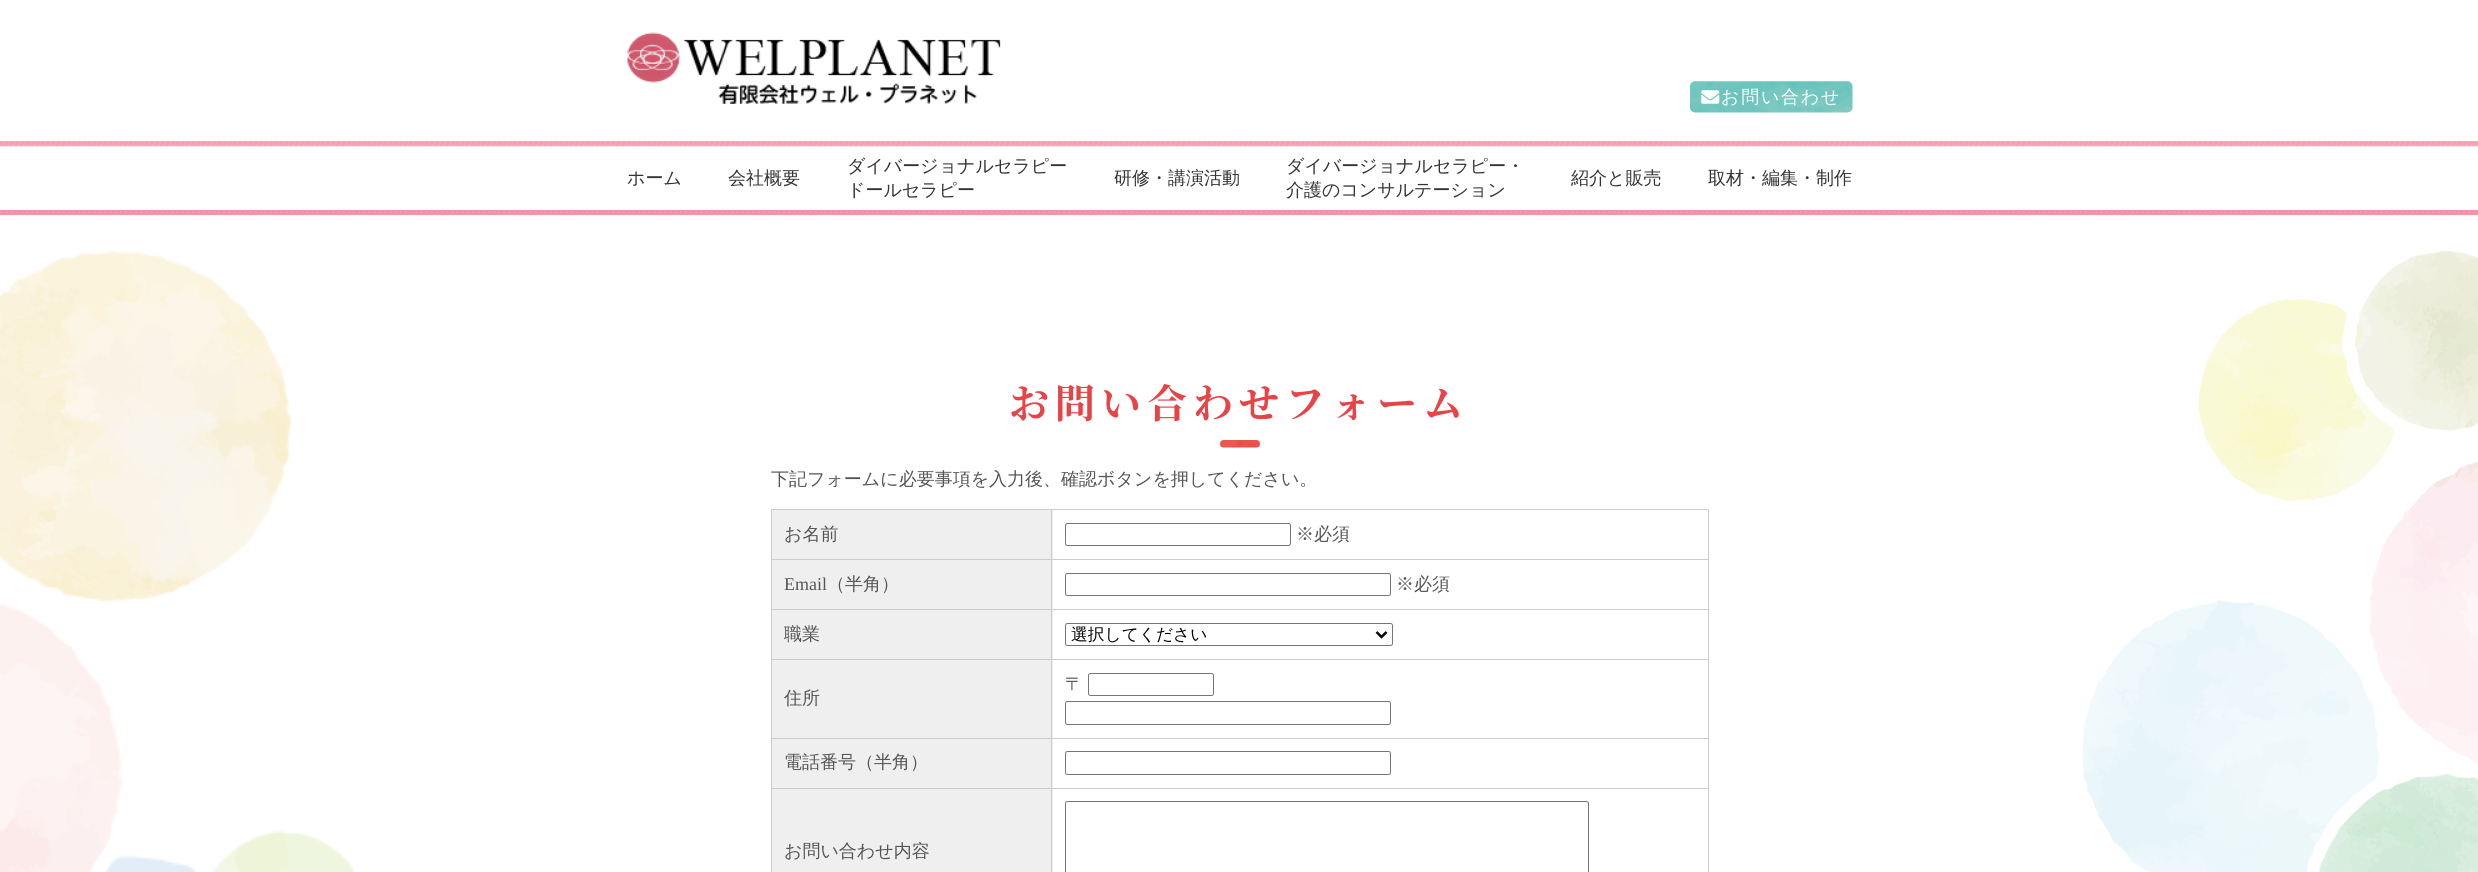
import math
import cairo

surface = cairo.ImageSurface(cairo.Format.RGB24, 2478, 872)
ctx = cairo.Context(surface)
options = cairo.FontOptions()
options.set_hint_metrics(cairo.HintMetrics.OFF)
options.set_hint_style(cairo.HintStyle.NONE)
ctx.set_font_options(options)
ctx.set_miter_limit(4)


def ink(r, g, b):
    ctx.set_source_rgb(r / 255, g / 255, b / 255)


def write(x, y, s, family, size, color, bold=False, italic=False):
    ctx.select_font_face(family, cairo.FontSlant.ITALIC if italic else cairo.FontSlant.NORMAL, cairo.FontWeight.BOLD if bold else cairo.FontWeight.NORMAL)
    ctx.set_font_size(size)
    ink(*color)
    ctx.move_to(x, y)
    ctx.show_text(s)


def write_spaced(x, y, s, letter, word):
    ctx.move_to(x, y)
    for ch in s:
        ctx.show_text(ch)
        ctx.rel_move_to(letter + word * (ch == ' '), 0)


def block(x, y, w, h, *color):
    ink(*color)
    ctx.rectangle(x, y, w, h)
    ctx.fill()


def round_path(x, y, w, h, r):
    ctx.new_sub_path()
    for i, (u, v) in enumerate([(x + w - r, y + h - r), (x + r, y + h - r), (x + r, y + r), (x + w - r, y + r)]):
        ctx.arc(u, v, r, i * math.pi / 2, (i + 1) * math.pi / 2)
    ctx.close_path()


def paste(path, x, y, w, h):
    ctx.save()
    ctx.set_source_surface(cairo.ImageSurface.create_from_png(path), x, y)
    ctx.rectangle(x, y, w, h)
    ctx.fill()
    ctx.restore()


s1 = dict(family="WenQuanYi Zen Hei Medium", size=18, color=(51, 51, 51))
s2 = dict(family="WenQuanYi Zen Hei Medium", size=18, color=(85, 85, 85))
s3 = dict(family="Liberation Serif", size=18, color=(85, 85, 85))
s4 = dict(family="WenQuanYi Zen Hei Medium", size=16.75, color=(0, 0, 0))

ink(255, 255, 255)
ctx.paint()
paste("pic1.png", 627, 32, 374, 72)
paste("pic2.png", 1689, 81, 164, 32)
paste("pic3.png", 1701, 90, 19, 14)
ctx.select_font_face("WenQuanYi Zen Hei Medium")
ctx.set_font_size(18)
ink(255, 255, 255)
write_spaced(1721, 103, "お問い合わせ", 1.75, 0)
paste("pic4.png", 0, 141, 2478, 74)
write(627, 184, "ホーム", **s1)
write(728, 184, "会社概要", **s1)
write(847, 172, "ダイバージョナルセラピー", **s1)
write(847, 196, "ドールセラピー", **s1)
write(1114, 184, "研修・講演活動", **s1)
write(1286, 172, "ダイバージョナルセラピー・", **s1)
write(1286, 196, "介護のコンサルテーション", **s1)
write(1571, 184, "紹介と販売", **s1)
write(1708, 184, "取材・編集・制作", **s1)
paste("pic5.png", 0, 251, 2478, 621)
ctx.select_font_face("Noto Serif JP", cairo.FontSlant.NORMAL, cairo.FontWeight.BOLD)
ctx.set_font_size(40)
ink(232, 67, 70)
write_spaced(1009, 418, "お問い合わせフォーム", 6, 0)
paste("pic6.png", 1220, 440, 40, 8)
write(771, 485, "下記フォームに必要事項を入力後、確認ボタンを押してください。", **s2)
block(772, 510, 281, 49, 239, 239, 239)
block(1051, 509, 658, 1, 204, 204, 204)
block(1051, 559, 658, 1, 204, 204, 204)
block(772, 560, 281, 49, 239, 239, 239)
block(1051, 609, 658, 1, 204, 204, 204)
block(772, 610, 281, 49, 239, 239, 239)
block(1051, 659, 658, 1, 204, 204, 204)
block(772, 660, 281, 78, 239, 239, 239)
block(1051, 738, 658, 1, 204, 204, 204)
block(772, 739, 281, 49, 239, 239, 239)
block(1051, 788, 658, 1, 204, 204, 204)
block(772, 789, 281, 83, 239, 239, 239)
block(1051, 788, 1, 84, 204, 204, 204)
block(771, 788, 282, 1, 204, 204, 204)
block(1051, 738, 1, 51, 204, 204, 204)
block(771, 738, 282, 1, 204, 204, 204)
block(1051, 659, 1, 80, 204, 204, 204)
block(771, 659, 282, 1, 204, 204, 204)
block(1051, 609, 1, 51, 204, 204, 204)
block(771, 609, 282, 1, 204, 204, 204)
block(1051, 559, 1, 51, 204, 204, 204)
block(771, 559, 282, 1, 204, 204, 204)
block(1051, 509, 1, 51, 204, 204, 204)
block(771, 509, 282, 1, 204, 204, 204)
block(771, 788, 1, 84, 204, 204, 204)
block(771, 738, 1, 51, 204, 204, 204)
block(771, 659, 1, 80, 204, 204, 204)
block(771, 609, 1, 51, 204, 204, 204)
block(771, 559, 1, 51, 204, 204, 204)
block(771, 509, 1, 51, 204, 204, 204)
write(784, 540, "お名前", **s2)
block(1708, 788, 1, 84, 204, 204, 204)
block(1708, 738, 1, 51, 204, 204, 204)
block(1708, 659, 1, 80, 204, 204, 204)
block(1708, 609, 1, 51, 204, 204, 204)
block(1708, 559, 1, 51, 204, 204, 204)
block(1708, 509, 1, 51, 204, 204, 204)
round_path(1065.5, 523.5, 225, 22, 2)
ink(118, 118, 118)
ctx.set_line_width(1)
ctx.stroke()
write(1296, 540, "※必須", **s2)
write(784, 590, "Email", **s3)
write(827, 590, "（半角）", **s2)
round_path(1065.5, 573.5, 325, 22, 2)
ink(118, 118, 118)
ctx.stroke()
write(1396, 590, "※必須", **s2)
write(784, 640, "職業", **s2)
round_path(1065.5, 623.5, 327, 22, 2)
ink(118, 118, 118)
ctx.stroke()
ctx.new_path()
ctx.move_to(1376.5, 632)
ctx.line_to(1381.5, 637)
ctx.line_to(1386.5, 632)
ink(0, 0, 0)
ctx.set_line_width(2.5)
ctx.stroke()
write(1071, 640, "選択してください", **s4)
write(1065, 690, "〒", **s2)
round_path(1088.5, 673.5, 125, 22, 2)
ink(118, 118, 118)
ctx.set_line_width(1)
ctx.stroke()
round_path(1065.5, 701.5, 325, 23, 2)
ctx.stroke()
write(784, 704, "住所", **s2)
write(784, 768, "電話番号（半角）", **s2)
round_path(1065.5, 751.5, 325, 23, 2)
ink(118, 118, 118)
ctx.stroke()
write(784, 857, "お問い合わせ内容", **s2)
round_path(1065.5, 801.5, 523, 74, 2)
ink(118, 118, 118)
ctx.stroke()
surface.write_to_png("screenshot.png")
